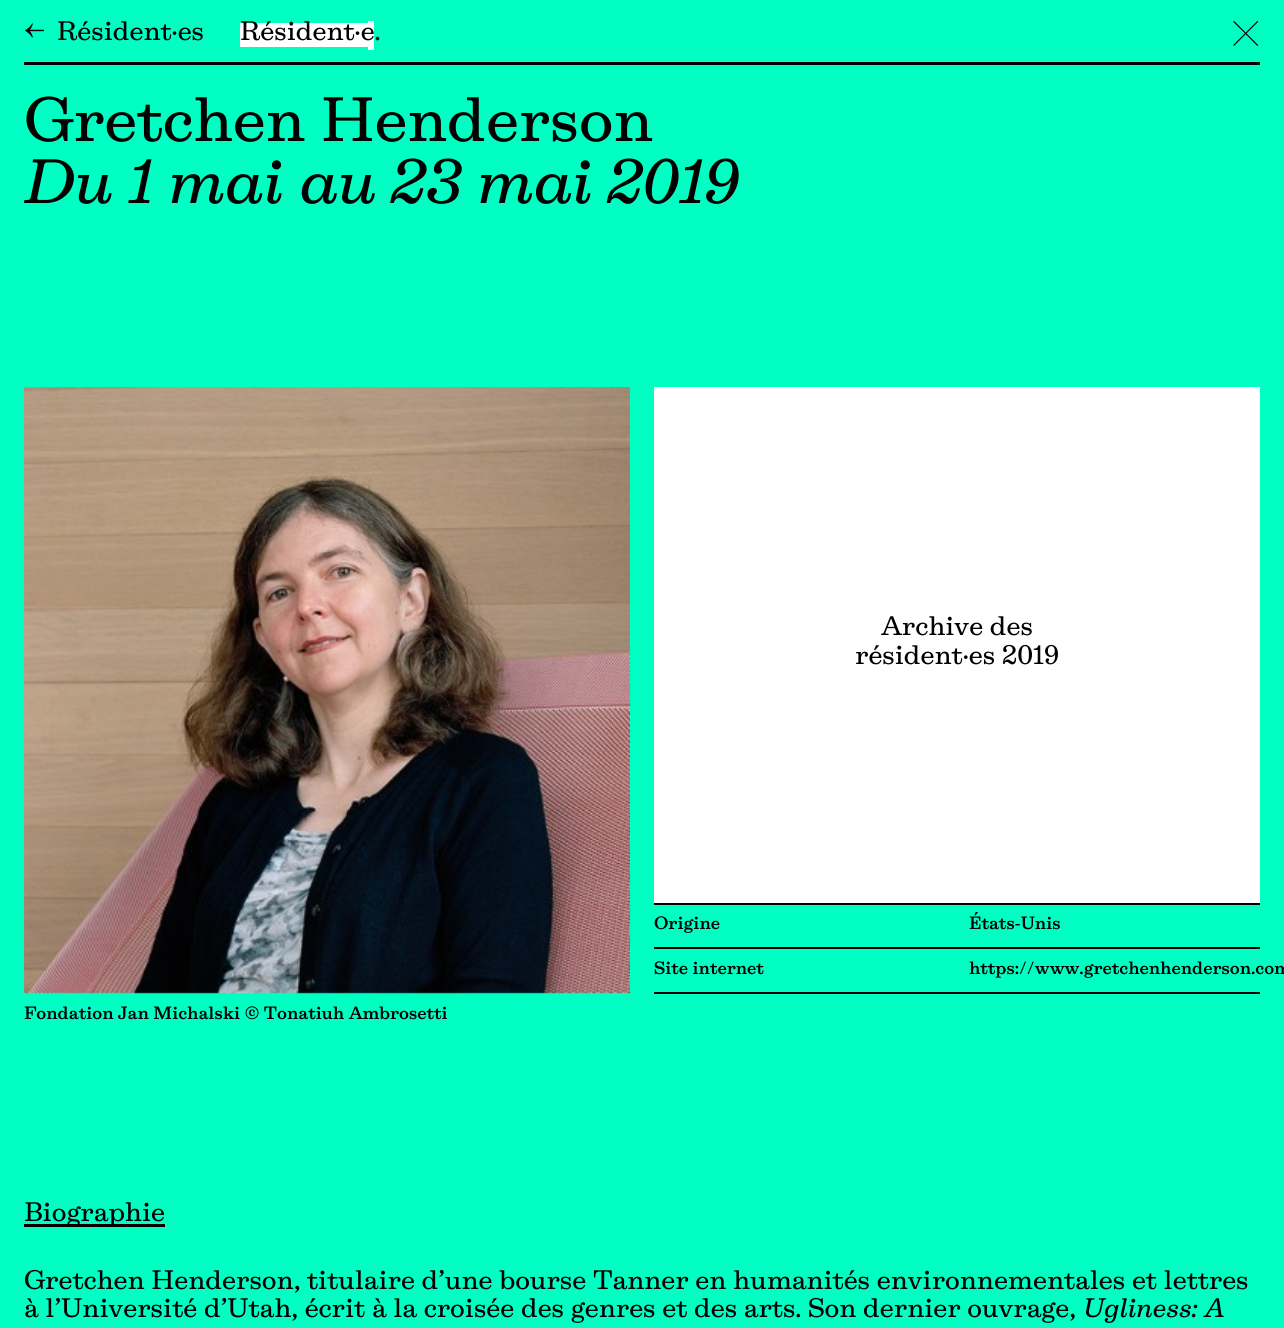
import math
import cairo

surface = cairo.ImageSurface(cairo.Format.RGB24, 1284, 1328)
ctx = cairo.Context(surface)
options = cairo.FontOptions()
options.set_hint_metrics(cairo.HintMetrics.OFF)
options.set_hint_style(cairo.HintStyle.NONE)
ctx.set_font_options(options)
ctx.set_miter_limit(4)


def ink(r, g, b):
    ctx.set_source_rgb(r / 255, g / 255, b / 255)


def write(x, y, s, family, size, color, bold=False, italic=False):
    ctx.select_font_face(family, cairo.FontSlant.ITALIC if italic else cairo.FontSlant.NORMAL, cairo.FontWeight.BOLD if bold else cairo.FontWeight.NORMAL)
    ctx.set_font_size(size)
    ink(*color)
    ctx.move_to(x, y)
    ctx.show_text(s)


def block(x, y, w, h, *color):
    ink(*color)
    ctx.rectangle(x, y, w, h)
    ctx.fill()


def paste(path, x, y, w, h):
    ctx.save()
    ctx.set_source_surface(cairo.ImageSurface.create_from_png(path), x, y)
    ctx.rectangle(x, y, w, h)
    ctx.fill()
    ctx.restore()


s1 = dict(family="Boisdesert", size=24, color=(0, 0, 0))
s2 = dict(family="Boisdesert", size=56, color=(0, 0, 0))
s3 = dict(family="Boisdesert", size=56, color=(0, 0, 0), italic=True)
s4 = dict(family="Boisdesert SemiBold", size=16, color=(0, 0, 0))
s5 = dict(family="Boisdesert", size=24, color=(0, 0, 0), italic=True)

ink(0, 255, 195)
ctx.paint()
block(24, 62, 1236, 3, 0, 0, 0)
write(24, 40, "←", **s1)
write(57, 40, "Résident·es", **s1)
block(240, 23, 128, 24, 255, 255, 255)
block(368, 21, 6, 29, 255, 255, 255)
write(240, 40, "Résident·e.", **s1)
write(1232, 40, "╳", **s1)
write(24, 141, "Gretchen Henderson", **s2)
write(24, 203, "Du 1 mai au 23 mai 2019", **s3)
block(654, 387, 606, 516, 255, 255, 255)
write(881, 635, "Archive des", **s1)
write(855, 664, "résident·es 2019", **s1)
block(654, 903, 606, 2, 0, 0, 0)
block(654, 947, 606, 2, 0, 0, 0)
write(654, 929, "Origine", **s4)
write(969, 929, "États-Unis", **s4)
block(654, 992, 606, 2, 0, 0, 0)
write(654, 974, "Site internet", **s4)
write(969, 974, "https://www.gretchenhenderson.com", **s4)
paste("pic1.png", 24, 387, 606, 607)
write(24, 1019, "Fondation Jan Michalski © Tonatiuh Ambrosetti", **s4)
block(24, 1224, 141, 3, 0, 0, 0)
write(24, 1221, "Biographie", **s1)
write(24, 1289, "Gretchen Henderson, titulaire d’une bourse Tanner en humanités environnementales et lettres", **s1)
write(24, 1317, "à l’Université d’Utah, écrit à la croisée des genres et des arts. Son dernier ouvrage,", **s1)
write(1083, 1317, "Ugliness: A", **s5)
surface.write_to_png("screenshot.png")
